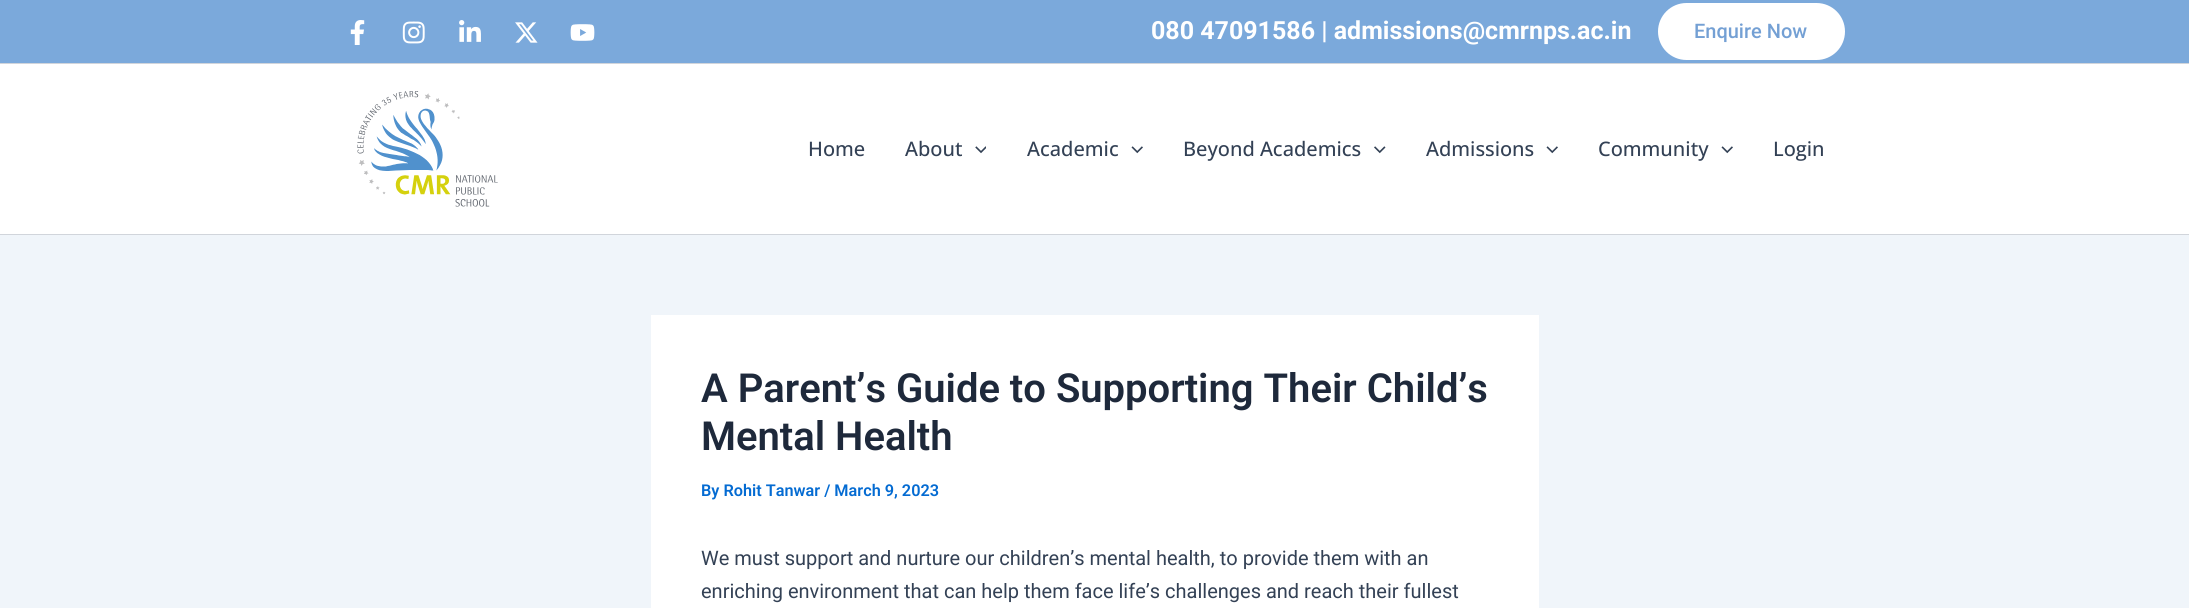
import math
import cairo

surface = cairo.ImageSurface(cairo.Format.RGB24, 2189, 608)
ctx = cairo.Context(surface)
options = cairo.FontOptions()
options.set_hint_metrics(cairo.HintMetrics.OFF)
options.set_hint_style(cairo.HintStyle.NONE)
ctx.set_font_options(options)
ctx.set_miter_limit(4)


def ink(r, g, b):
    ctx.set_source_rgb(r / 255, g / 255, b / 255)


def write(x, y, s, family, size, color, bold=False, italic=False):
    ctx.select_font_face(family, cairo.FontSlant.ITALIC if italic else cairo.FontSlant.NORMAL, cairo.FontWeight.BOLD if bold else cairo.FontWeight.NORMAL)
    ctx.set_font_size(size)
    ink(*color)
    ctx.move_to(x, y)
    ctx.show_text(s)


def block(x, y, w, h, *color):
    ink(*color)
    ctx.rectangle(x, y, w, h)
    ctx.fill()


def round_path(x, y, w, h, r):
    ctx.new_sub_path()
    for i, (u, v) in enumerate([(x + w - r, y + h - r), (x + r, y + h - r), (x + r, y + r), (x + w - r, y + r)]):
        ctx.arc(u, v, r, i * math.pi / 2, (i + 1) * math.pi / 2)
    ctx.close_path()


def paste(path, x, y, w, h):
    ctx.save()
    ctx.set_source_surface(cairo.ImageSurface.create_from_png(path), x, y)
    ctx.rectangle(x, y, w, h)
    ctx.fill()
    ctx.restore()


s1 = dict(family="Roboto", size=25, color=(255, 255, 255), bold=True)
s2 = dict(family="Roboto Medium", size=20, color=(116, 160, 212))
s3 = dict(family="Open Sans Medium", size=20, color=(51, 65, 85))
s4 = dict(family="Roboto SemiBold", size=40, color=(30, 41, 59))
s5 = dict(family="Roboto SemiBold", size=16.25, color=(4, 107, 210))
s6 = dict(family="Roboto", size=20, color=(51, 65, 85))

ink(240, 245, 250)
ctx.paint()
block(0, 0, 2189, 63, 123, 169, 219)
block(0, 63, 2189, 1, 209, 213, 219)
paste("pic1.png", 350, 20, 15, 25)
paste("pic2.png", 402, 21, 23, 23)
paste("pic3.png", 459, 20, 22, 22)
paste("pic4.png", 515, 22, 23, 21)
paste("pic5.png", 570, 24, 25, 17)
write(1151, 39, "080 47091586 | admissions@cmrnps.ac.in", **s1)
round_path(1658, 3, 187, 57, 28.5)
ctx.fill()
write(1694, 38, "Enquire Now", **s2)
block(0, 64, 2189, 170, 255, 255, 255)
block(0, 234, 2189, 1, 209, 213, 219)
paste("pic6.png", 357, 91, 141, 116)
write(808, 156, "Home", **s3)
write(905, 156, "About", **s3)
paste("pic7.png", 975, 146, 11, 8)
write(1027, 156, "Academic", **s3)
paste("pic8.png", 1131, 146, 12, 8)
write(1183, 156, "Beyond Academics", **s3)
paste("pic9.png", 1374, 146, 12, 8)
write(1426, 156, "Admissions", **s3)
paste("pic8.png", 1546, 146, 12, 8)
write(1598, 156, "Community", **s3)
paste("pic8.png", 1721, 146, 12, 8)
write(1773, 156, "Login", **s3)
block(651, 315, 888, 293, 255, 255, 255)
write(701, 402, "A Parent’s Guide to Supporting Their Child’s", **s4)
write(701, 450, "Mental Health", **s4)
write(701, 496, "By Rohit Tanwar / March 9, 2023", **s5)
write(701, 565, "We must support and nurture our children’s mental health, to provide them with an", **s6)
write(701, 598, "enriching environment that can help them face life’s challenges and reach their fullest", **s6)
surface.write_to_png("screenshot.png")
